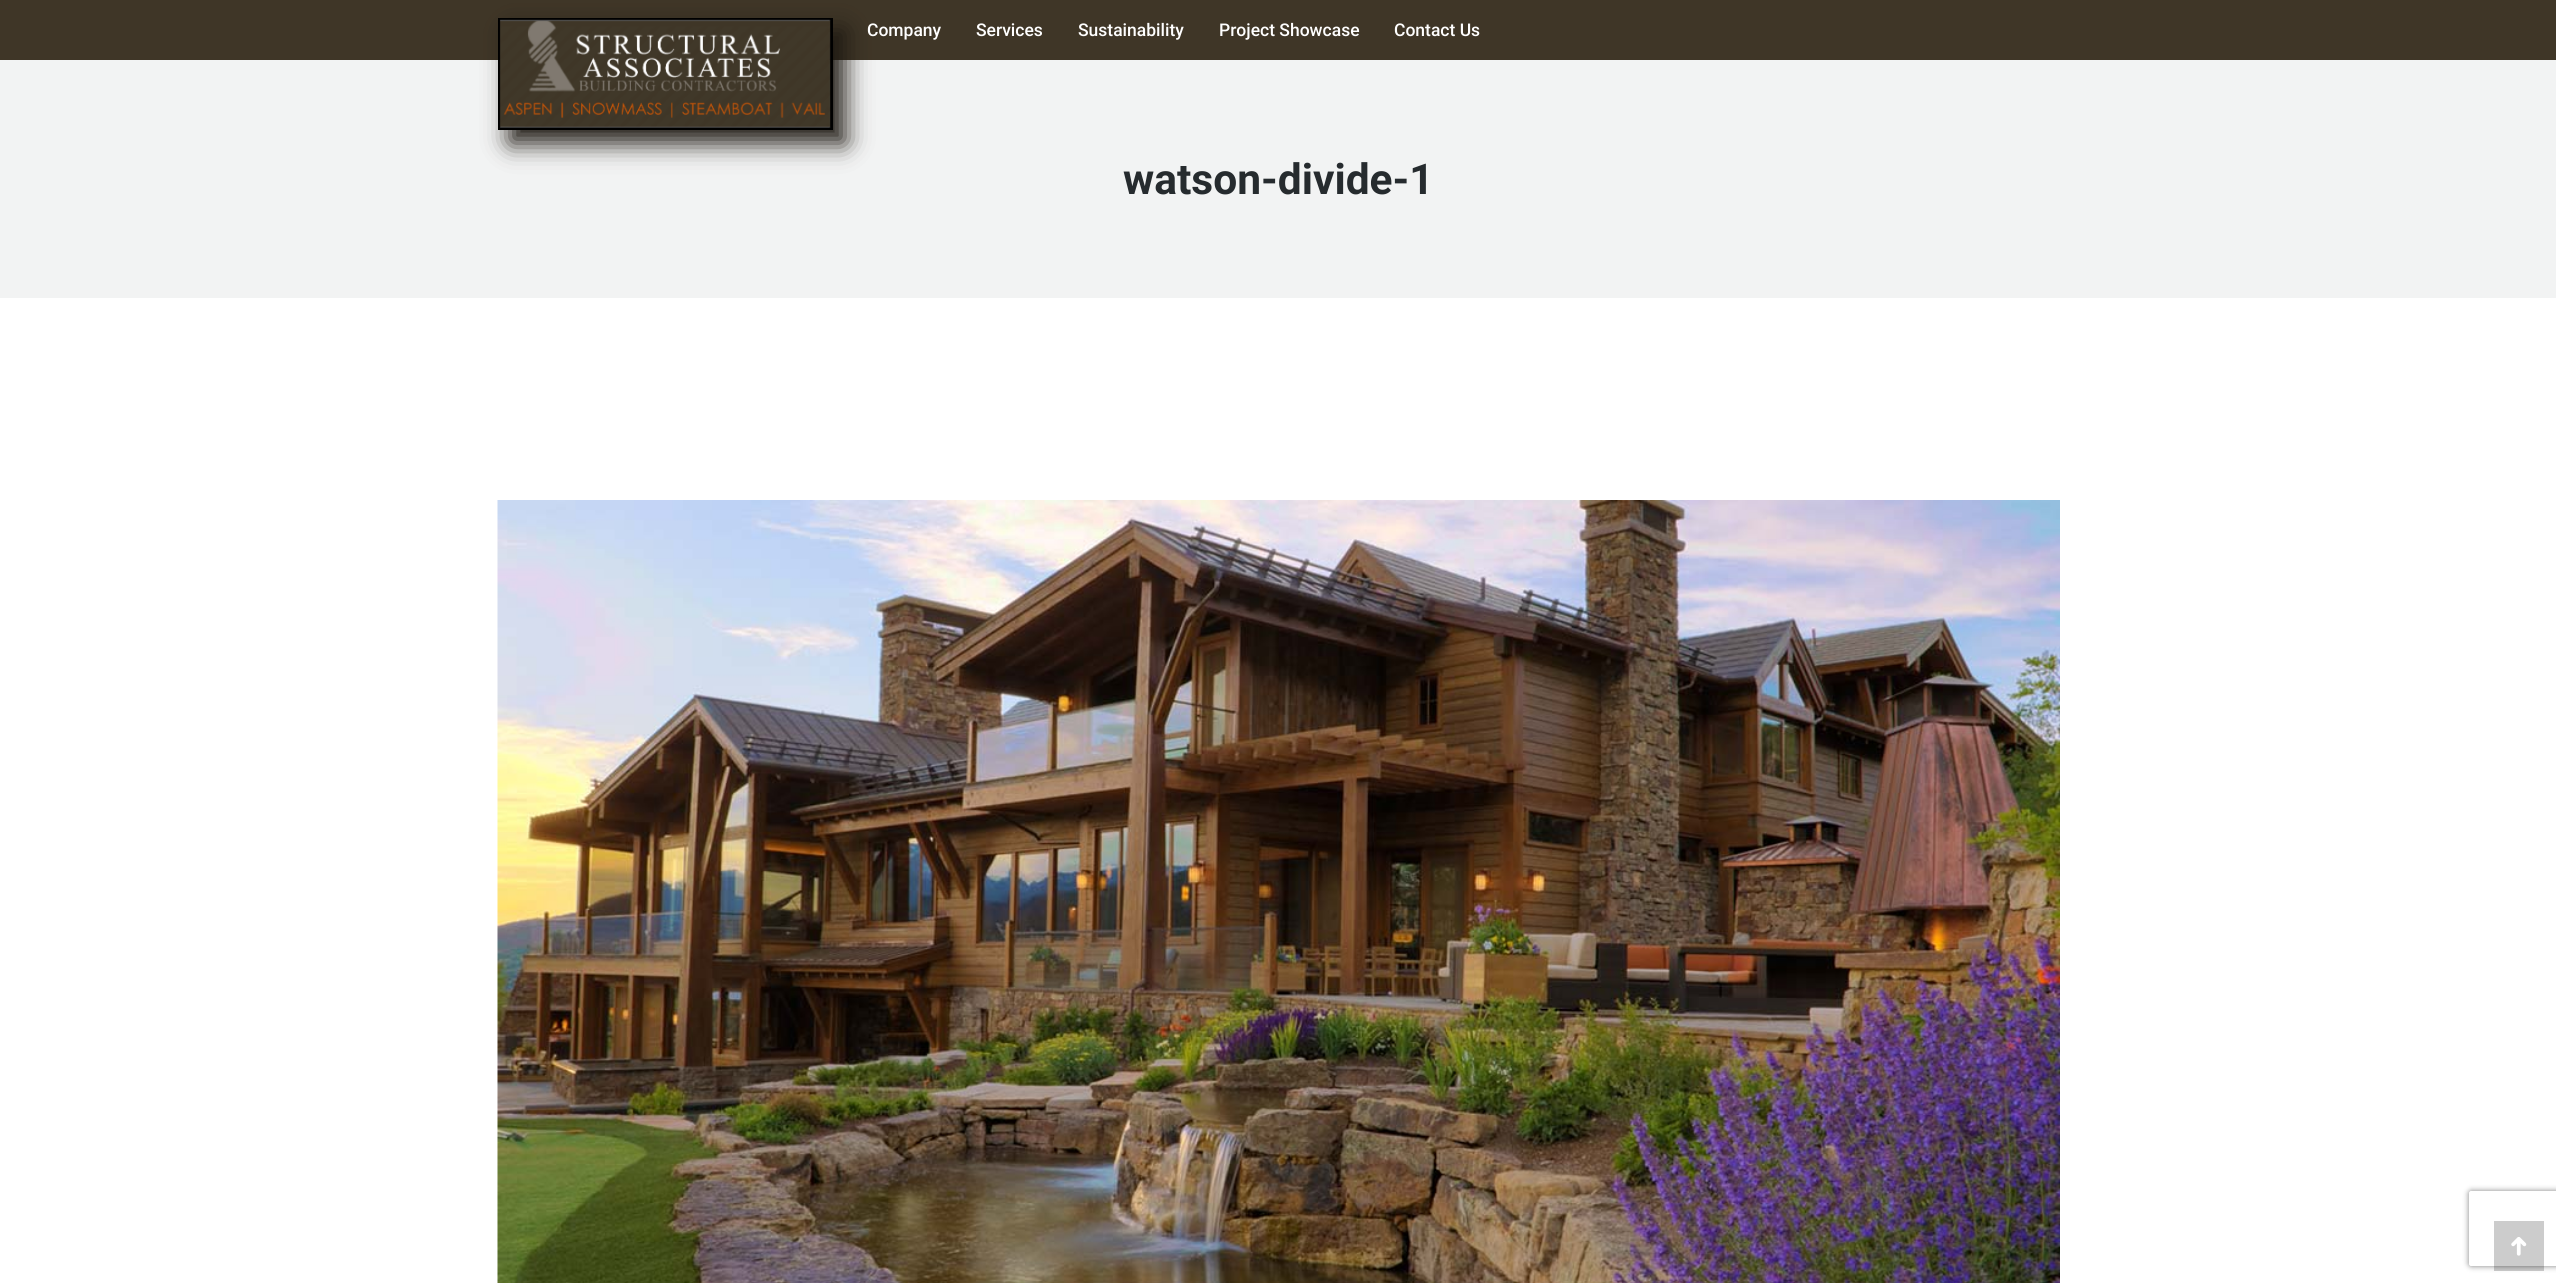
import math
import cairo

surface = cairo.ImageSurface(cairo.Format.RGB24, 2556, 1283)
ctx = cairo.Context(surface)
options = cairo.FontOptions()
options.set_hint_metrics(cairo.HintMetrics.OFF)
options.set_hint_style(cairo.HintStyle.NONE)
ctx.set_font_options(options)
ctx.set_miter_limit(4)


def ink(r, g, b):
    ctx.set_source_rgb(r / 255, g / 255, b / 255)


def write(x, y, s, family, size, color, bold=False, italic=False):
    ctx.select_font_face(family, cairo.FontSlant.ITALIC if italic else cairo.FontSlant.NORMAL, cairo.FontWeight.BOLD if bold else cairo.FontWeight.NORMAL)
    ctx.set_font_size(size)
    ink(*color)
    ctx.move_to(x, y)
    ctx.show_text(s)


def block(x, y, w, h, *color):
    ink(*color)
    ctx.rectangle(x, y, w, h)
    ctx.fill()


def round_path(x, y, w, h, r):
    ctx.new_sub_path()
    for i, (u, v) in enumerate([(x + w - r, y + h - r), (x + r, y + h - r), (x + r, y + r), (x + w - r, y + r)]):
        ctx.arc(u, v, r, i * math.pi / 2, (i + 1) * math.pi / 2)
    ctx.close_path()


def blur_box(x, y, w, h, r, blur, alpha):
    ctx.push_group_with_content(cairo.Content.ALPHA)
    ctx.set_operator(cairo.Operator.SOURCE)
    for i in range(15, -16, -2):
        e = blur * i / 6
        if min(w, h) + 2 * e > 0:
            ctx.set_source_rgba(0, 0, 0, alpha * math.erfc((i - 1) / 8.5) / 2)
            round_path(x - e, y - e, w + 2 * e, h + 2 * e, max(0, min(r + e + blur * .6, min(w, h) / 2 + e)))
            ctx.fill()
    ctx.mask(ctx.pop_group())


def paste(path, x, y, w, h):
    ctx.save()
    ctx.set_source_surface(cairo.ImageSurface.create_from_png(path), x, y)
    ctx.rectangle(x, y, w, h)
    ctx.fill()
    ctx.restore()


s1 = dict(family="Roboto Medium", size=17.5, color=(255, 255, 255))
s2 = dict(family="Roboto", size=42.5, color=(38, 43, 46), bold=True)

ink(242, 243, 243)
ctx.paint()
block(0, 0, 2556, 60, 63, 54, 39)
ink(29, 24, 17)
blur_box(510, 30, 335, 113, 0, 12.5, 1)
ctx.rectangle(499.5, 19.5, 332, 109)
ink(0, 0, 0)
ctx.set_line_width(3)
ctx.stroke()
paste("pic1.png", 499, 19, 332, 109)
write(867, 36, "Company", **s1)
write(976, 36, "Services", **s1)
write(1078, 36, "Sustainability", **s1)
write(1219, 36, "Project Showcase", **s1)
write(1394, 36, "Contact Us", **s1)
write(1123, 194, "watson-divide-1", **s2)
block(0, 298, 2556, 985, 255, 255, 255)
paste("pic2.png", 497, 500, 1563, 783)
ctx.save()
ctx.set_fill_rule(cairo.FillRule.EVEN_ODD)
ctx.new_path()
ctx.move_to(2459, 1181)
ctx.line_to(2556, 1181)
ctx.line_to(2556, 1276)
ctx.line_to(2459, 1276)
ctx.close_path()
ctx.move_to(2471.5, 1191)
ctx.line_to(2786.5, 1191)
ctx.curve_to(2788, 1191, 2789, 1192, 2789, 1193.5)
ctx.line_to(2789, 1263.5)
ctx.curve_to(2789, 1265, 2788, 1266, 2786.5, 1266)
ctx.line_to(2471.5, 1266)
ctx.curve_to(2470, 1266, 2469, 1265, 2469, 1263.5)
ctx.line_to(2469, 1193.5)
ctx.curve_to(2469, 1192, 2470, 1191, 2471.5, 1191)
ctx.close_path()
ctx.clip()
ink(128, 128, 128)
blur_box(2469, 1191, 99, 75, 2.5, 3, 1)
ctx.restore()
ctx.set_source_rgba(0, 0, 0, 0.2)
ctx.rectangle(2494, 1221, 50, 50)
ctx.fill()
paste("pic3.png", 2511, 1237, 16, 19)
surface.write_to_png("screenshot.png")
